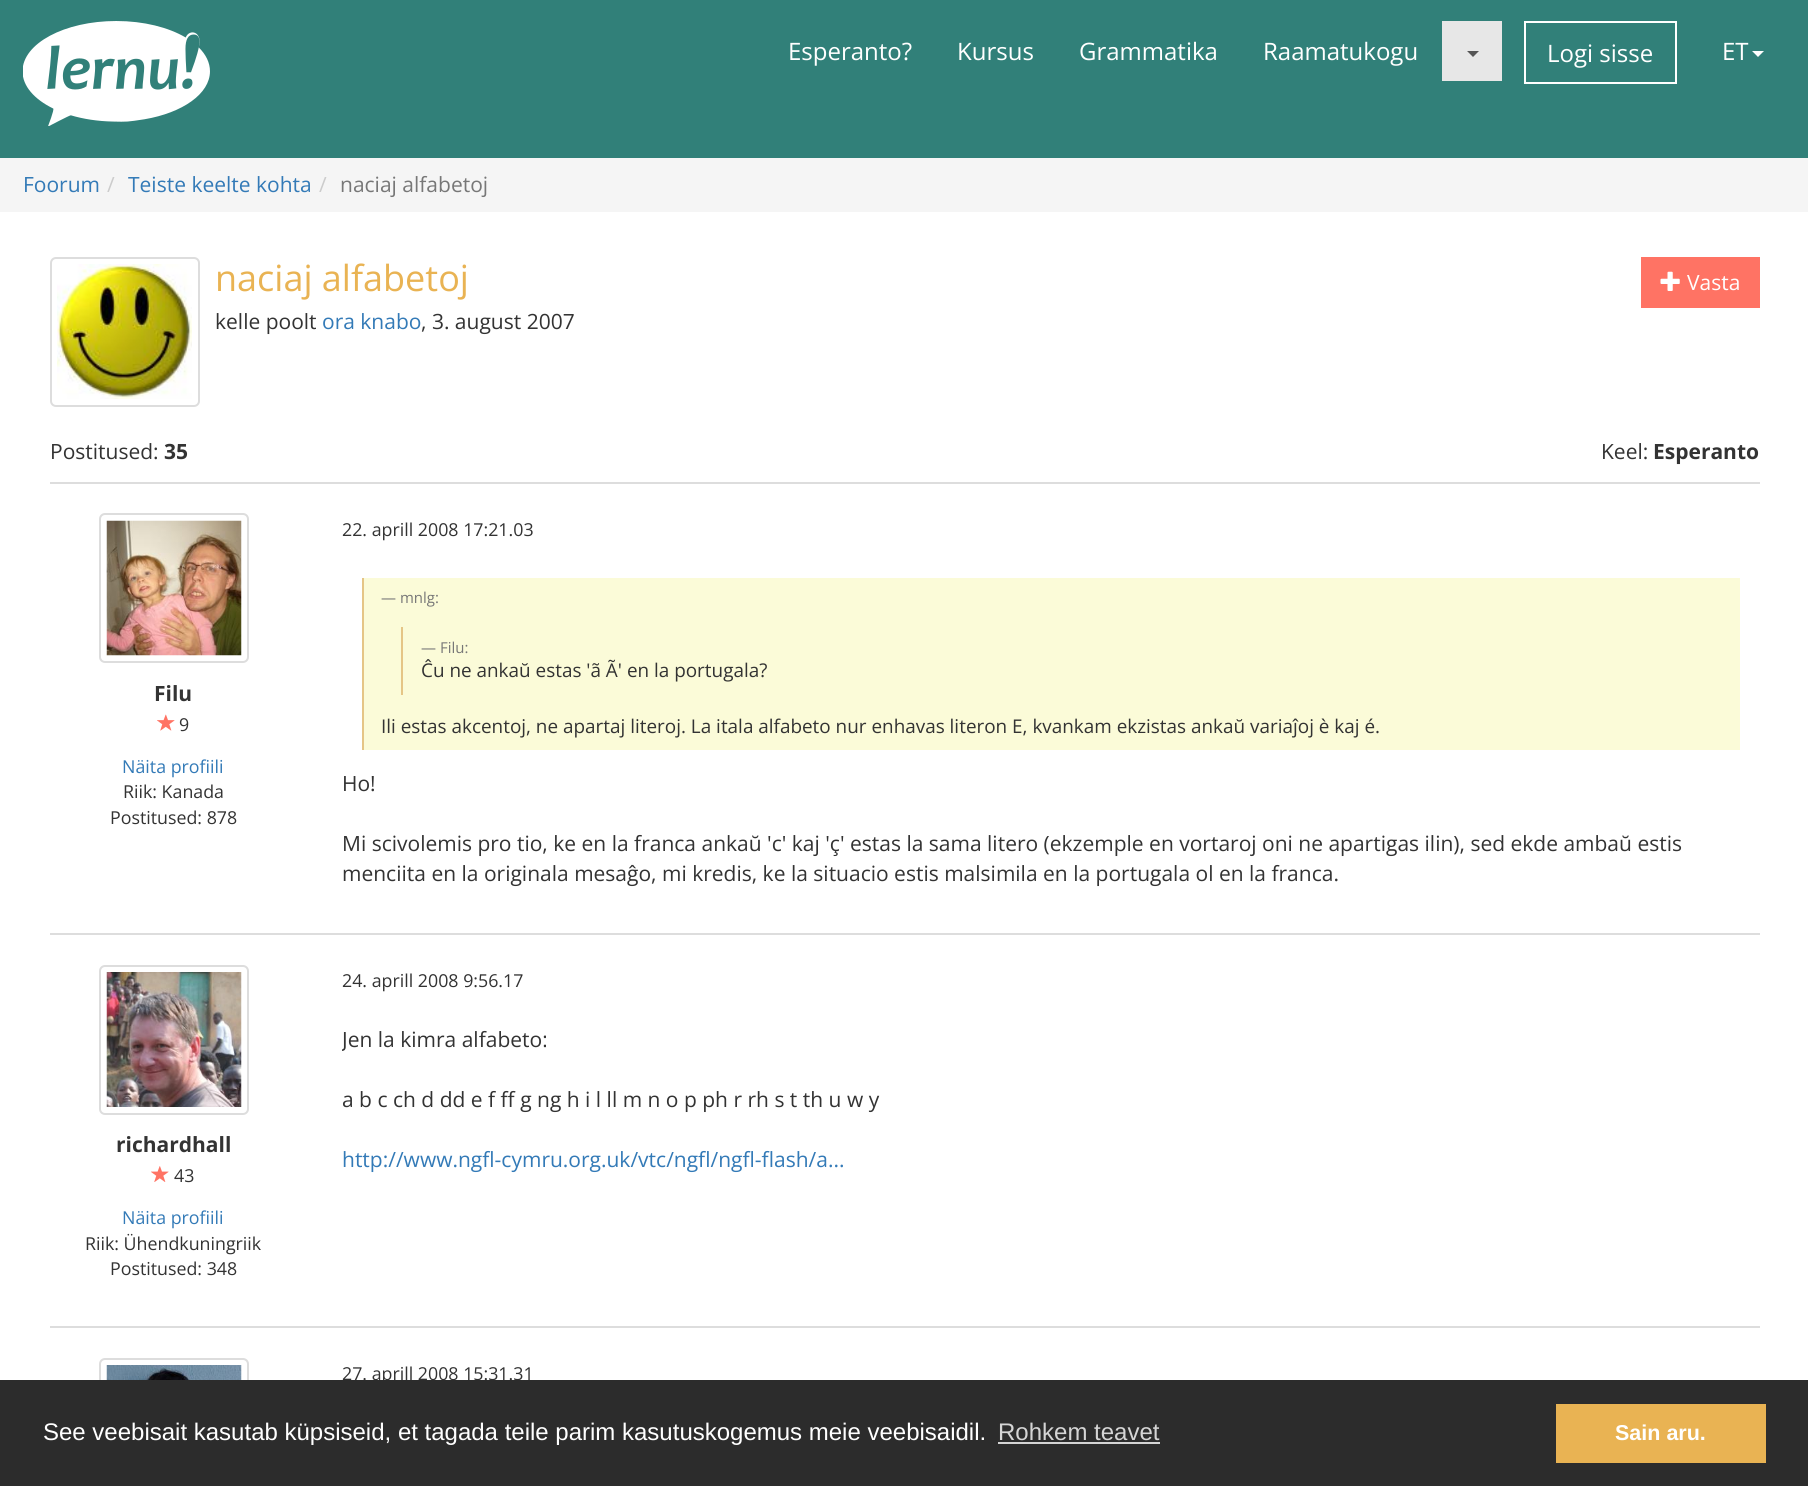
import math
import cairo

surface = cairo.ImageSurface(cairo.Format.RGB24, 1808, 1486)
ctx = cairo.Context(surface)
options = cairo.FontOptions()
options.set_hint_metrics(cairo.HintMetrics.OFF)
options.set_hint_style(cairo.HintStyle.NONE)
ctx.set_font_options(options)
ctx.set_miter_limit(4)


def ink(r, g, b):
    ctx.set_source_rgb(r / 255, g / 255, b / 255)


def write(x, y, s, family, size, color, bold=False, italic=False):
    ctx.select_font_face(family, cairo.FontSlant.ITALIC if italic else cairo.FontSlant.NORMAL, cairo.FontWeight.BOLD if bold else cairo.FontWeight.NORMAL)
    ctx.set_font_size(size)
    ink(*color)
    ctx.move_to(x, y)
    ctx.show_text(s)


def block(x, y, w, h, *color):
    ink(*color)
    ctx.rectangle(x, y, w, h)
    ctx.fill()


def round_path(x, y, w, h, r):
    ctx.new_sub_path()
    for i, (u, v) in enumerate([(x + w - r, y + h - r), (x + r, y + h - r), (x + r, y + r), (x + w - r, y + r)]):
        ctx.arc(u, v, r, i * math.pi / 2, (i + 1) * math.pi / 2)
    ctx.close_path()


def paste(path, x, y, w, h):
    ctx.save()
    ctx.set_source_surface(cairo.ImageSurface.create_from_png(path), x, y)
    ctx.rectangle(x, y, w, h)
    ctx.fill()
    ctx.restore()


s1 = dict(family="Open Sans", size=24, color=(255, 255, 255))
s2 = dict(family="Open Sans", size=21, color=(51, 122, 183))
s3 = dict(family="Open Sans", size=21, color=(204, 204, 204))
s4 = dict(family="Open Sans", size=21, color=(119, 119, 119))
s5 = dict(family="Open Sans", size=36, color=(233, 179, 83))
s6 = dict(family="Open Sans", size=21, color=(51, 51, 51))
s7 = dict(family="Open Sans", size=21, color=(255, 255, 255))
s8 = dict(family="Open Sans", size=21, color=(51, 51, 51), bold=True)
s9 = dict(family="Open Sans", size=17.8, color=(51, 51, 51))
s10 = dict(family="Open Sans", size=17.8, color=(51, 122, 183))
s11 = dict(family="Open Sans", size=15, color=(119, 119, 119))
s12 = dict(family="Open Sans", size=18.9, color=(51, 51, 51))
s13 = dict(family="Liberation Sans", size=24, color=(255, 255, 255))
s14 = dict(family="Liberation Sans", size=24, color=(213, 213, 213))
s15 = dict(family="Liberation Sans", size=21.5, color=(255, 255, 255), bold=True)

ink(255, 255, 255)
ctx.paint()
block(0, 0, 1808, 158, 49, 128, 121)
paste("pic1.png", 23, 21, 187, 105)
write(788, 60, "Esperanto?", **s1)
write(957, 60, "Kursus", **s1)
write(1079, 60, "Grammatika", **s1)
write(1263, 60, "Raamatukogu", **s1)
block(1442, 21, 60, 60, 231, 231, 231)
ink(85, 85, 85)
ctx.new_path()
ctx.move_to(1467, 51)
ctx.line_to(1479, 51)
ctx.line_to(1473, 57)
ctx.close_path()
ctx.fill()
ctx.rectangle(1525, 22, 151, 61)
ink(255, 255, 255)
ctx.stroke()
write(1547, 62, "Logi sisse", **s1)
write(1722, 60, "ET", **s1)
ctx.new_path()
ctx.move_to(1752, 51)
ctx.line_to(1764, 51)
ctx.line_to(1758, 57)
ctx.close_path()
ctx.fill()
block(0, 158, 1808, 54, 245, 245, 245)
write(23, 192, "Foorum", **s2)
write(107, 192, "/", **s3)
write(128, 192, "Teiste keelte kohta", **s2)
write(319, 192, "/", **s3)
write(340, 192, "naciaj alfabetoj", **s4)
round_path(51, 258, 148, 148, 5)
ink(221, 221, 221)
ctx.stroke()
paste("pic2.png", 57, 264, 135, 135)
write(215, 291, "naciaj alfabetoj", **s5)
write(215, 329, "kelle poolt", **s6)
write(322, 329, "ora knabo", **s2)
write(421, 329, ", 3. august 2007", **s6)
block(1641, 257, 119, 51, 255, 115, 100)
paste("pic3.png", 1660, 271, 20, 20)
write(1687, 290, "Vasta", **s7)
write(50, 459, "Postitused:", **s6)
write(164, 459, "35", **s8)
write(1601, 459, "Keel:", **s6)
write(1653, 459, "Esperanto", **s8)
block(50, 482, 1710, 2, 221, 221, 221)
round_path(100, 514, 148, 148, 5)
ctx.stroke()
paste("pic4.png", 106, 520, 136, 136)
write(154, 701, "Filu", **s8)
paste("pic5.png", 157, 714, 18, 17)
write(179, 731, "9", **s9)
write(122, 773, "Näita profiili", **s10)
write(123, 798, "Riik: Kanada", **s9)
write(110, 824, "Postitused: 878", **s9)
write(342, 536, "22. aprill 2008 17:21.03", **s9)
block(364, 578, 1376, 172, 251, 251, 216)
block(362, 578, 2, 172, 229, 197, 134)
write(381, 603, "— mnlg:", **s11)
block(401, 627, 2, 68, 229, 197, 134)
write(421, 653, "— Filu:", **s11)
write(421, 677, "Ĉu ne ankaŭ estas 'ã Ã' en la portugala?", **s12)
write(381, 733, "Ili estas akcentoj, ne apartaj literoj. La itala alfabeto nur enhavas literon E, kvankam ekzistas ankaŭ variaĵoj è kaj é.", **s12)
write(342, 791, "Ho!", **s6)
write(342, 851, "Mi scivolemis pro tio, ke en la franca ankaŭ 'c' kaj 'ç' estas la sama litero (ekzemple en vortaroj oni ne apartigas ilin), sed ekde ambaŭ estis", **s6)
write(342, 881, "menciita en la originala mesaĝo, mi kredis, ke la situacio estis malsimila en la portugala ol en la franca.", **s6)
block(50, 933, 1710, 2, 221, 221, 221)
write(342, 987, "24. aprill 2008 9:56.17", **s9)
ctx.save()
ctx.rectangle(342, 1010, 1418, 180)
ctx.clip()
write(342, 1047, "Jen la kimra alfabeto:", **s6)
ctx.restore()
write(342, 1107, "a b c ch d dd e f ff g ng h i l ll m n o p ph r rh s t th u w y", **s6)
write(342, 1167, "http://www.ngfl-cymru.org.uk/vtc/ngfl/ngfl-flash/a...", **s2)
round_path(100, 966, 148, 148, 5)
ink(221, 221, 221)
ctx.stroke()
paste("pic6.png", 106, 972, 136, 135)
write(116, 1152, "richardhall", **s8)
paste("pic7.png", 151, 1166, 18, 16)
write(174, 1182, "43", **s9)
write(122, 1224, "Näita profiili", **s10)
write(85, 1250, "Riik: Ühendkuningriik", **s9)
write(110, 1275, "Postitused: 348", **s9)
block(50, 1326, 1710, 2, 221, 221, 221)
round_path(100, 1359, 148, 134, 5)
ctx.stroke()
paste("pic8.png", 106, 1365, 136, 15)
write(342, 1380, "27. aprill 2008 15:31.31", **s9)
block(0, 1380, 1808, 106, 44, 44, 44)
write(43, 1440, "See veebisait kasutab küpsiseid, et tagada teile parim kasutuskogemus meie veebisaidil.", **s13)
write(998, 1440, "Rohkem teavet", **s14)
block(998, 1442, 162, 2, 213, 213, 213)
block(1556, 1404, 210, 59, 233, 179, 83)
write(1615, 1440, "Sain aru.", **s15)
surface.write_to_png("screenshot.png")
